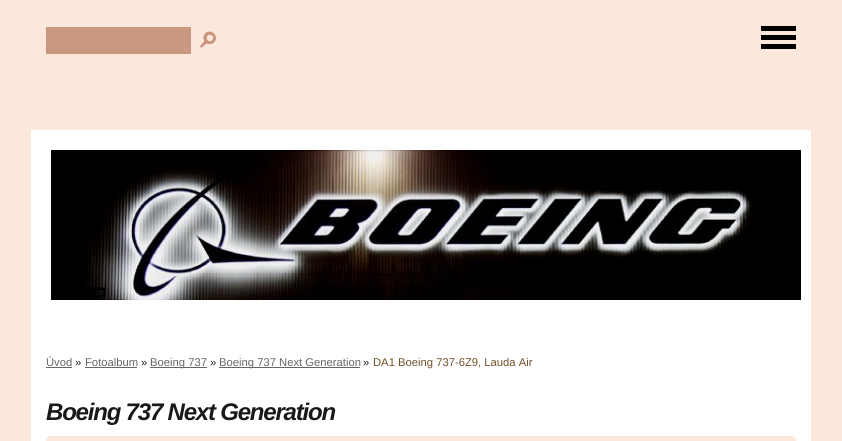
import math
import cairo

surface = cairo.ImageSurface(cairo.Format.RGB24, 842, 441)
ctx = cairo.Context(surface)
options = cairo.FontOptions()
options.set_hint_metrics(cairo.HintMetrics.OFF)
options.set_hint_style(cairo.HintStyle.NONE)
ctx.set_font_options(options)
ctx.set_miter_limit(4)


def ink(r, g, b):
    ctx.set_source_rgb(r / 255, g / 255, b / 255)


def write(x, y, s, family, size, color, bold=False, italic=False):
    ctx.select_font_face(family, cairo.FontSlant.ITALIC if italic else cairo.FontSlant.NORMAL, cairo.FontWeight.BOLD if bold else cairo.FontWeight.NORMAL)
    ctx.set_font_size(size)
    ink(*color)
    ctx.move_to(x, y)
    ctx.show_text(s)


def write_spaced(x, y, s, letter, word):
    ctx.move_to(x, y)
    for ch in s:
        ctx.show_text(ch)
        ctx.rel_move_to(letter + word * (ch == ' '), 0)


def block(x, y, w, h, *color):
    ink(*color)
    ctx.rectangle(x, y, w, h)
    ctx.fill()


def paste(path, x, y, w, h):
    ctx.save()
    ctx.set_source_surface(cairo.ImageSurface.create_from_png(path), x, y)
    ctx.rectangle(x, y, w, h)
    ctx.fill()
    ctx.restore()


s1 = dict(family="Liberation Sans", size=11.25, color=(102, 102, 102))
s2 = dict(family="Liberation Sans", size=11.25, color=(25, 25, 25))
s3 = dict(family="Liberation Sans", size=11.25, color=(112, 80, 43))

ink(252, 231, 220)
ctx.paint()
block(31, 130, 780, 311, 255, 255, 255)
block(46, 27, 145, 27, 202, 151, 128)
paste("pic1.png", 200, 31, 16, 18)
block(761, 26, 35, 5, 0, 0, 0)
block(761, 35, 35, 5, 0, 0, 0)
block(761, 44, 35, 5, 0, 0, 0)
paste("pic2.png", 51, 150, 750, 150)
write(46, 366, "Úvod", **s1)
block(46, 367, 26, 1, 102, 102, 102)
write(75, 366, "»", **s2)
write(85, 366, "Fotoalbum", **s1)
block(85, 367, 52, 1, 102, 102, 102)
write(141, 366, "»", **s2)
block(150, 367, 57, 1, 102, 102, 102)
write(150, 366, "Boeing 737", **s1)
write(210, 366, "»", **s2)
block(219, 367, 141, 1, 102, 102, 102)
write(219, 366, "Boeing 737 Next Generation", **s1)
write(363, 366, "»", **s2)
write(373, 366, "DA1 Boeing 737-6Z9, Lauda Air", **s3)
ctx.select_font_face("Liberation Sans", cairo.FontSlant.ITALIC, cairo.FontWeight.BOLD)
ctx.set_font_size(24)
ink(25, 25, 25)
write_spaced(46, 420, "Boeing 737 Next Generation", -1.2, 0)
ink(252, 231, 218)
ctx.new_path()
ctx.move_to(51, 436)
ctx.line_to(791, 436)
ctx.curve_to(794, 436, 796, 438, 796, 441)
ctx.line_to(796, 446)
ctx.line_to(46, 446)
ctx.line_to(46, 441)
ctx.curve_to(46, 438, 48, 436, 51, 436)
ctx.close_path()
ctx.fill()
surface.write_to_png("screenshot.png")
